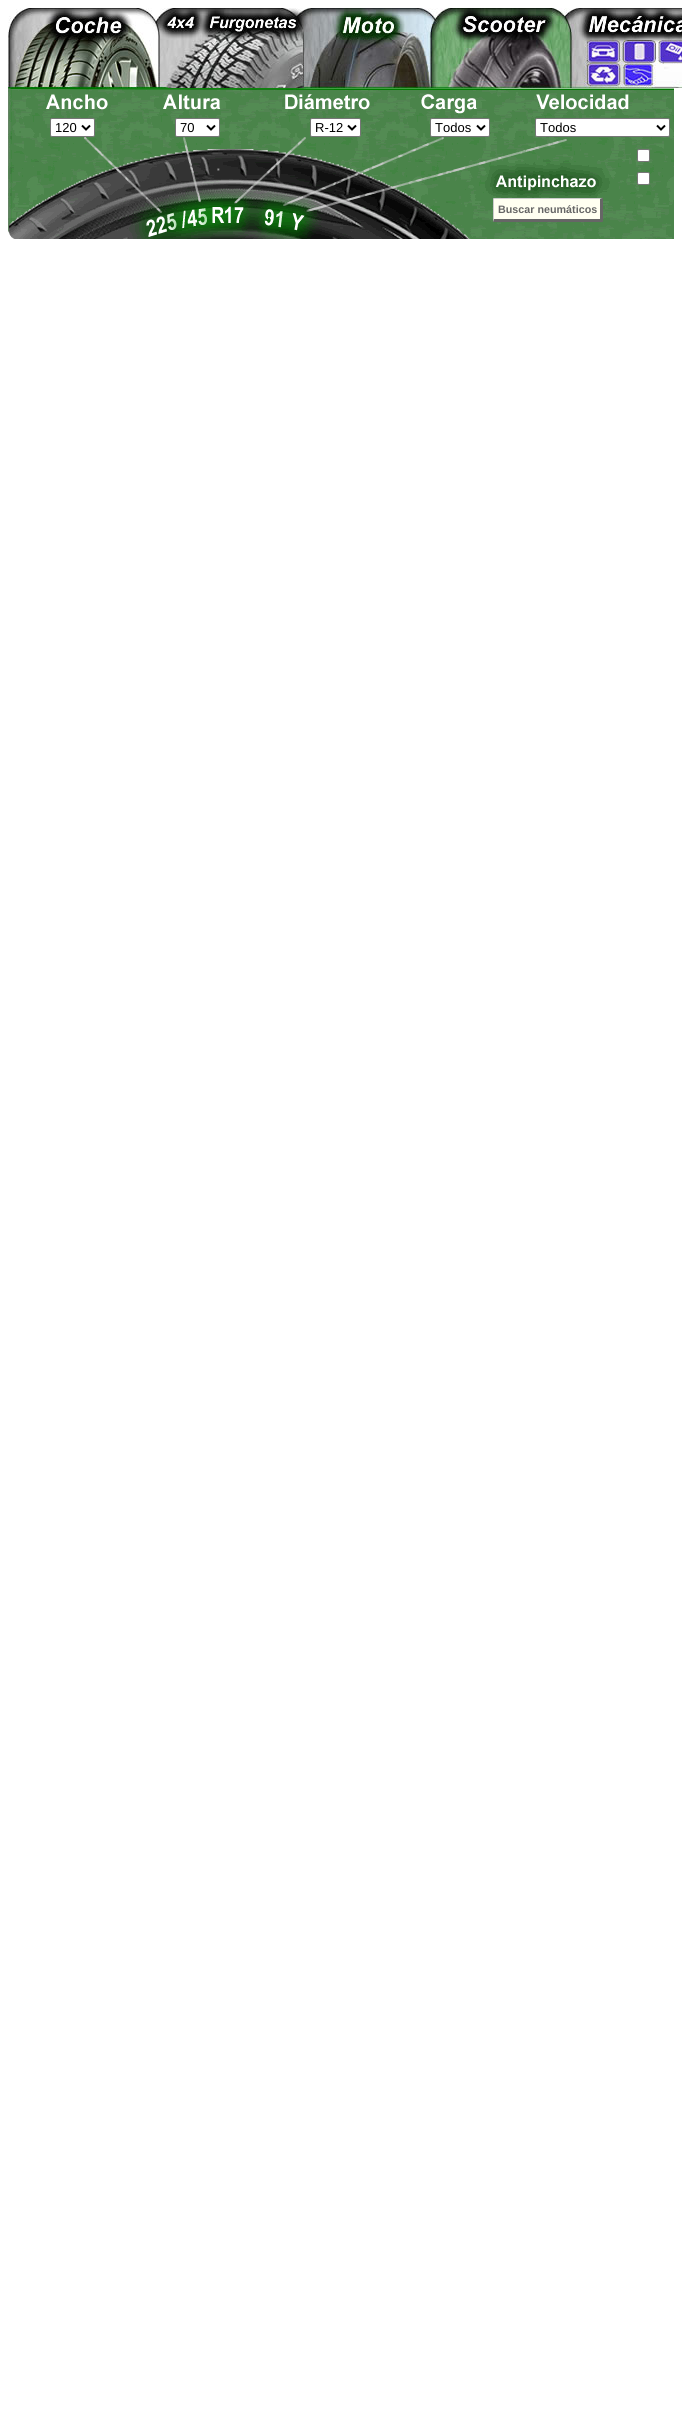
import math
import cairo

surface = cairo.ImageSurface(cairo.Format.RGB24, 682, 2436)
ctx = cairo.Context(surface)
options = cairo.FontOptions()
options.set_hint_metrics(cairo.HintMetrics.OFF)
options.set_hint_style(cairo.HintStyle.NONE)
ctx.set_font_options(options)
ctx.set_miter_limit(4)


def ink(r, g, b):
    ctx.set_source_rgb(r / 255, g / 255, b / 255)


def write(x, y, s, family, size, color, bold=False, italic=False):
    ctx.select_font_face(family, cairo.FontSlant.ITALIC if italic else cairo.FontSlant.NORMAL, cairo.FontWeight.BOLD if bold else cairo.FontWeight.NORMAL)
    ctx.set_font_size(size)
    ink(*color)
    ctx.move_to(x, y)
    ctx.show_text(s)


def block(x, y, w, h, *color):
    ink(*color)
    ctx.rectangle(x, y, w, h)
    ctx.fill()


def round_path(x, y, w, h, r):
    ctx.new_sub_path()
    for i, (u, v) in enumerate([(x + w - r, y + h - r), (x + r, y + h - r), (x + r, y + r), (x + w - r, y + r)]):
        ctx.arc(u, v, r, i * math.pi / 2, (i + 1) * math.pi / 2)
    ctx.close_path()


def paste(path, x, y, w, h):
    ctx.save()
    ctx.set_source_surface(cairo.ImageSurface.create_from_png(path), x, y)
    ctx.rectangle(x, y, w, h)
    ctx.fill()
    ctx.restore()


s1 = dict(family="Liberation Sans", size=13, color=(0, 0, 0))
s2 = dict(family="Liberation Sans", size=10.75, color=(102, 102, 102), bold=True)

ink(255, 255, 255)
ctx.paint()
paste("pic1.png", 8, 8, 674, 80)
paste("pic2.png", 8, 88, 666, 151)
ink(255, 255, 255)
round_path(50.5, 118.5, 44, 18, 1.5)
ctx.fill_preserve()
ink(118, 118, 118)
ctx.set_line_width(1)
ctx.stroke()
ctx.new_path()
ctx.move_to(82, 125.5)
ctx.line_to(86, 129.5)
ctx.line_to(90, 125.5)
ink(0, 0, 0)
ctx.set_line_width(2)
ctx.stroke()
write(55, 132, "120", **s1)
ink(255, 255, 255)
round_path(175.5, 118.5, 44, 18, 1.5)
ctx.fill_preserve()
ink(118, 118, 118)
ctx.set_line_width(1)
ctx.stroke()
ctx.new_path()
ctx.move_to(207, 125.5)
ctx.line_to(211, 129.5)
ctx.line_to(215, 125.5)
ink(0, 0, 0)
ctx.set_line_width(2)
ctx.stroke()
write(180, 132, "70", **s1)
ink(255, 255, 255)
round_path(310.5, 118.5, 50, 18, 1.5)
ctx.fill_preserve()
ink(118, 118, 118)
ctx.set_line_width(1)
ctx.stroke()
ctx.new_path()
ctx.move_to(348, 125.5)
ctx.line_to(352, 129.5)
ctx.line_to(356, 125.5)
ink(0, 0, 0)
ctx.set_line_width(2)
ctx.stroke()
write(315, 132, "R-12", **s1)
ink(255, 255, 255)
round_path(430.5, 118.5, 59, 18, 1.5)
ctx.fill_preserve()
ink(118, 118, 118)
ctx.set_line_width(1)
ctx.stroke()
ctx.new_path()
ctx.move_to(477, 125.5)
ctx.line_to(481, 129.5)
ctx.line_to(485, 125.5)
ink(0, 0, 0)
ctx.set_line_width(2)
ctx.stroke()
write(435, 132, "Todos", **s1)
ink(255, 255, 255)
round_path(535.5, 118.5, 134, 18, 1.5)
ctx.fill_preserve()
ink(118, 118, 118)
ctx.set_line_width(1)
ctx.stroke()
ctx.new_path()
ctx.move_to(657, 125.5)
ctx.line_to(661, 129.5)
ctx.line_to(665, 125.5)
ink(0, 0, 0)
ctx.set_line_width(2)
ctx.stroke()
write(540, 132, "Todos", **s1)
ink(255, 255, 255)
round_path(637.5, 149.5, 12, 12, 1.5)
ctx.fill_preserve()
ink(118, 118, 118)
ctx.set_line_width(1)
ctx.stroke()
ink(255, 255, 255)
round_path(637.5, 172.5, 12, 12, 1.5)
ctx.fill_preserve()
ink(118, 118, 118)
ctx.stroke()
block(494, 199, 106, 20, 255, 255, 241)
ink(204, 204, 204)
ctx.new_path()
ctx.move_to(493, 198)
ctx.line_to(603, 198)
ctx.line_to(600, 199)
ctx.line_to(494, 199)
ctx.close_path()
ctx.fill()
ink(102, 102, 102)
ctx.new_path()
ctx.move_to(603, 198)
ctx.line_to(603, 222)
ctx.line_to(600, 219)
ctx.line_to(600, 199)
ctx.close_path()
ctx.fill()
ctx.new_path()
ctx.move_to(603, 222)
ctx.line_to(493, 222)
ctx.line_to(494, 219)
ctx.line_to(600, 219)
ctx.close_path()
ctx.fill()
ink(204, 204, 204)
ctx.new_path()
ctx.move_to(493, 222)
ctx.line_to(493, 198)
ctx.line_to(494, 199)
ctx.line_to(494, 219)
ctx.close_path()
ctx.fill()
write(498, 213, "Buscar neumáticos", **s2)
surface.write_to_png("screenshot.png")
